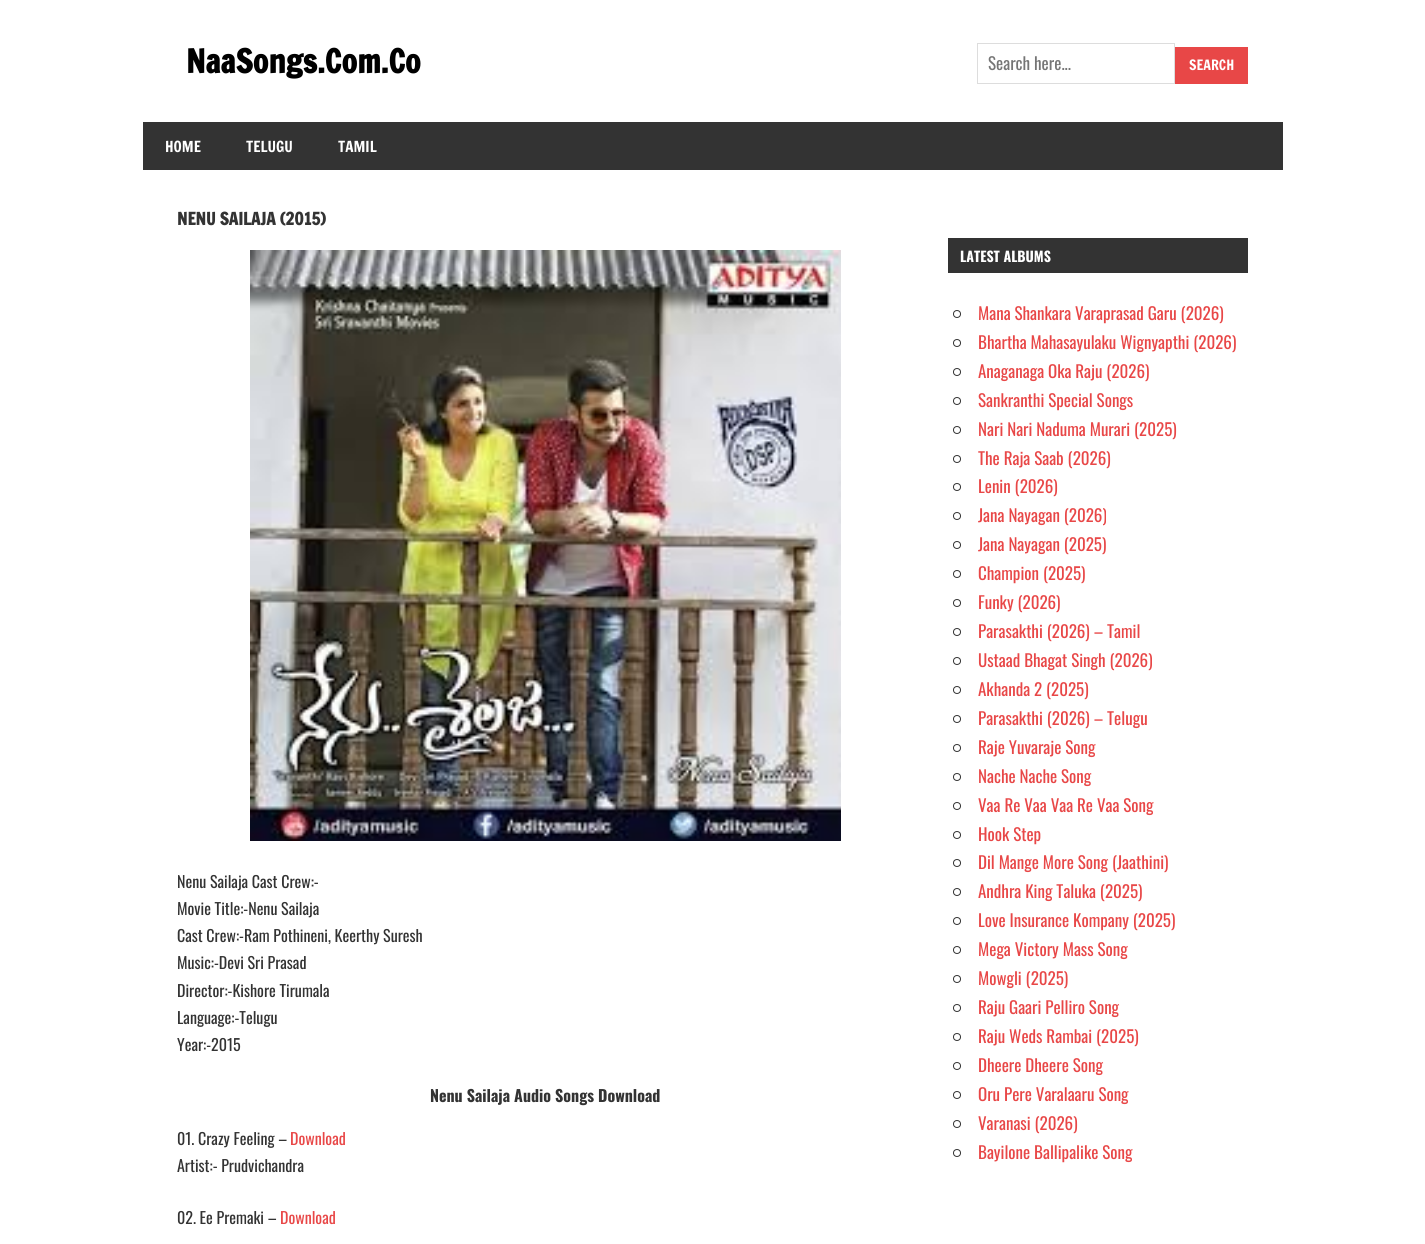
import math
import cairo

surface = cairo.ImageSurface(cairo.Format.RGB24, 1425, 1244)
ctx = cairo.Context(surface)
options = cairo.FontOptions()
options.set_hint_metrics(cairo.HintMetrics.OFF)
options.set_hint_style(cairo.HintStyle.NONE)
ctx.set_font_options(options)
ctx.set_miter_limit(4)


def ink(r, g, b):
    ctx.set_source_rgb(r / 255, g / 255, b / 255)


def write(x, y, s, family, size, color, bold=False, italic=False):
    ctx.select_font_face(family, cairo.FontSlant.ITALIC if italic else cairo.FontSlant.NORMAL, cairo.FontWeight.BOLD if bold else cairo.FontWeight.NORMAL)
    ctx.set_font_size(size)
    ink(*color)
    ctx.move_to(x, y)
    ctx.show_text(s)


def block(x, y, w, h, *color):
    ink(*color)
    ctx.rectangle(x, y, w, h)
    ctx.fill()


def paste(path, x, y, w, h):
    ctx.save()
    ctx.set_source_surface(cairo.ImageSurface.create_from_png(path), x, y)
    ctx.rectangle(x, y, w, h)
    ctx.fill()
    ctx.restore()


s1 = dict(family="Francois One", size=32, color=(0, 0, 0), bold=True)
s2 = dict(family="Oswald", size=17, color=(117, 117, 117))
s3 = dict(family="Francois One", size=14, color=(255, 255, 255))
s4 = dict(family="Francois One", size=15, color=(255, 255, 255))
s5 = dict(family="Francois One", size=17, color=(51, 51, 51), bold=True)
s6 = dict(family="Oswald", size=16, color=(51, 51, 51))
s7 = dict(family="Oswald", size=16, color=(51, 51, 51), bold=True)
s8 = dict(family="Oswald", size=16, color=(232, 71, 71))
s9 = dict(family="Oswald", size=14, color=(255, 255, 255), bold=True)
s10 = dict(family="Oswald", size=17, color=(232, 71, 71))

ink(255, 255, 255)
ctx.paint()
write(186, 73, "NaaSongs.Com.Co", **s1)
ctx.rectangle(977.5, 43.5, 197, 40)
ink(221, 221, 221)
ctx.set_line_width(1)
ctx.stroke()
write(988, 70, "Search here...", **s2)
block(1175, 47, 73, 37, 232, 71, 71)
write(1189, 70, "SEARCH", **s3)
block(143, 122, 1140, 48, 51, 51, 51)
write(165, 152, "HOME", **s4)
write(246, 152, "TELUGU", **s4)
write(338, 152, "TAMIL", **s4)
write(177, 225, "NENU SAILAJA (2015)", **s5)
paste("pic1.png", 250, 250, 591, 591)
write(177, 888, "Nenu Sailaja Cast Crew:-", **s6)
write(177, 915, "Movie Title:-Nenu Sailaja", **s6)
write(177, 942, "Cast Crew:-Ram Pothineni, Keerthy Suresh", **s6)
write(177, 969, "Music:-Devi Sri Prasad", **s6)
write(177, 997, "Director:-Kishore Tirumala", **s6)
write(177, 1024, "Language:-Telugu", **s6)
write(177, 1051, "Year:-2015", **s6)
write(430, 1102, "Nenu Sailaja Audio Songs Download", **s7)
write(177, 1145, "01. Crazy Feeling –", **s6)
write(290, 1145, "Download", **s8)
write(177, 1172, "Artist:- Prudvichandra", **s6)
write(177, 1224, "02. Ee Premaki –", **s6)
write(280, 1224, "Download", **s8)
block(948, 238, 300, 35, 51, 51, 51)
write(960, 262, "LATEST ALBUMS", **s9)
ctx.new_path()
ctx.arc(957, 314, 3.5, 0, 2 * math.pi)
ink(51, 51, 51)
ctx.stroke()
write(978, 320, "Mana Shankara Varaprasad Garu (2026)", **s10)
ctx.new_path()
ctx.arc(957, 343, 3.5, 0, 2 * math.pi)
ink(51, 51, 51)
ctx.stroke()
write(978, 349, "Bhartha Mahasayulaku Wignyapthi (2026)", **s10)
ctx.new_path()
ctx.arc(957, 372, 3.5, 0, 2 * math.pi)
ink(51, 51, 51)
ctx.stroke()
write(978, 378, "Anaganaga Oka Raju (2026)", **s10)
ctx.new_path()
ctx.arc(957, 401, 3.5, 0, 2 * math.pi)
ink(51, 51, 51)
ctx.stroke()
write(978, 407, "Sankranthi Special Songs", **s10)
ctx.new_path()
ctx.arc(957, 430, 3.5, 0, 2 * math.pi)
ink(51, 51, 51)
ctx.stroke()
write(978, 436, "Nari Nari Naduma Murari (2025)", **s10)
ctx.new_path()
ctx.arc(957, 459, 3.5, 0, 2 * math.pi)
ink(51, 51, 51)
ctx.stroke()
write(978, 465, "The Raja Saab (2026)", **s10)
ctx.new_path()
ctx.arc(957, 487, 3.5, 0, 2 * math.pi)
ink(51, 51, 51)
ctx.stroke()
write(978, 493, "Lenin (2026)", **s10)
ctx.new_path()
ctx.arc(957, 516, 3.5, 0, 2 * math.pi)
ink(51, 51, 51)
ctx.stroke()
write(978, 522, "Jana Nayagan (2026)", **s10)
ctx.new_path()
ctx.arc(957, 545, 3.5, 0, 2 * math.pi)
ink(51, 51, 51)
ctx.stroke()
write(978, 551, "Jana Nayagan (2025)", **s10)
ctx.new_path()
ctx.arc(957, 574, 3.5, 0, 2 * math.pi)
ink(51, 51, 51)
ctx.stroke()
write(978, 580, "Champion (2025)", **s10)
ctx.new_path()
ctx.arc(957, 603, 3.5, 0, 2 * math.pi)
ink(51, 51, 51)
ctx.stroke()
write(978, 609, "Funky (2026)", **s10)
ctx.new_path()
ctx.arc(957, 632, 3.5, 0, 2 * math.pi)
ink(51, 51, 51)
ctx.stroke()
write(978, 638, "Parasakthi (2026) – Tamil", **s10)
ctx.new_path()
ctx.arc(957, 661, 3.5, 0, 2 * math.pi)
ink(51, 51, 51)
ctx.stroke()
write(978, 667, "Ustaad Bhagat Singh (2026)", **s10)
ctx.new_path()
ctx.arc(957, 690, 3.5, 0, 2 * math.pi)
ink(51, 51, 51)
ctx.stroke()
write(978, 696, "Akhanda 2 (2025)", **s10)
ctx.new_path()
ctx.arc(957, 719, 3.5, 0, 2 * math.pi)
ink(51, 51, 51)
ctx.stroke()
write(978, 725, "Parasakthi (2026) – Telugu", **s10)
ctx.new_path()
ctx.arc(957, 748, 3.5, 0, 2 * math.pi)
ink(51, 51, 51)
ctx.stroke()
write(978, 754, "Raje Yuvaraje Song", **s10)
ctx.new_path()
ctx.arc(957, 777, 3.5, 0, 2 * math.pi)
ink(51, 51, 51)
ctx.stroke()
write(978, 783, "Nache Nache Song", **s10)
ctx.new_path()
ctx.arc(957, 806, 3.5, 0, 2 * math.pi)
ink(51, 51, 51)
ctx.stroke()
write(978, 812, "Vaa Re Vaa Vaa Re Vaa Song", **s10)
ctx.new_path()
ctx.arc(957, 835, 3.5, 0, 2 * math.pi)
ink(51, 51, 51)
ctx.stroke()
write(978, 841, "Hook Step", **s10)
ctx.new_path()
ctx.arc(957, 863, 3.5, 0, 2 * math.pi)
ink(51, 51, 51)
ctx.stroke()
write(978, 869, "Dil Mange More Song (Jaathini)", **s10)
ctx.new_path()
ctx.arc(957, 892, 3.5, 0, 2 * math.pi)
ink(51, 51, 51)
ctx.stroke()
write(978, 898, "Andhra King Taluka (2025)", **s10)
ctx.new_path()
ctx.arc(957, 921, 3.5, 0, 2 * math.pi)
ink(51, 51, 51)
ctx.stroke()
write(978, 927, "Love Insurance Kompany (2025)", **s10)
ctx.new_path()
ctx.arc(957, 950, 3.5, 0, 2 * math.pi)
ink(51, 51, 51)
ctx.stroke()
write(978, 956, "Mega Victory Mass Song", **s10)
ctx.new_path()
ctx.arc(957, 979, 3.5, 0, 2 * math.pi)
ink(51, 51, 51)
ctx.stroke()
write(978, 985, "Mowgli (2025)", **s10)
ctx.new_path()
ctx.arc(957, 1008, 3.5, 0, 2 * math.pi)
ink(51, 51, 51)
ctx.stroke()
write(978, 1014, "Raju Gaari Pelliro Song", **s10)
ctx.new_path()
ctx.arc(957, 1037, 3.5, 0, 2 * math.pi)
ink(51, 51, 51)
ctx.stroke()
write(978, 1043, "Raju Weds Rambai (2025)", **s10)
ctx.new_path()
ctx.arc(957, 1066, 3.5, 0, 2 * math.pi)
ink(51, 51, 51)
ctx.stroke()
write(978, 1072, "Dheere Dheere Song", **s10)
ctx.new_path()
ctx.arc(957, 1095, 3.5, 0, 2 * math.pi)
ink(51, 51, 51)
ctx.stroke()
write(978, 1101, "Oru Pere Varalaaru Song", **s10)
ctx.new_path()
ctx.arc(957, 1124, 3.5, 0, 2 * math.pi)
ink(51, 51, 51)
ctx.stroke()
write(978, 1130, "Varanasi (2026)", **s10)
ctx.new_path()
ctx.arc(957, 1153, 3.5, 0, 2 * math.pi)
ink(51, 51, 51)
ctx.stroke()
write(978, 1159, "Bayilone Ballipalike Song", **s10)
surface.write_to_png("screenshot.png")
